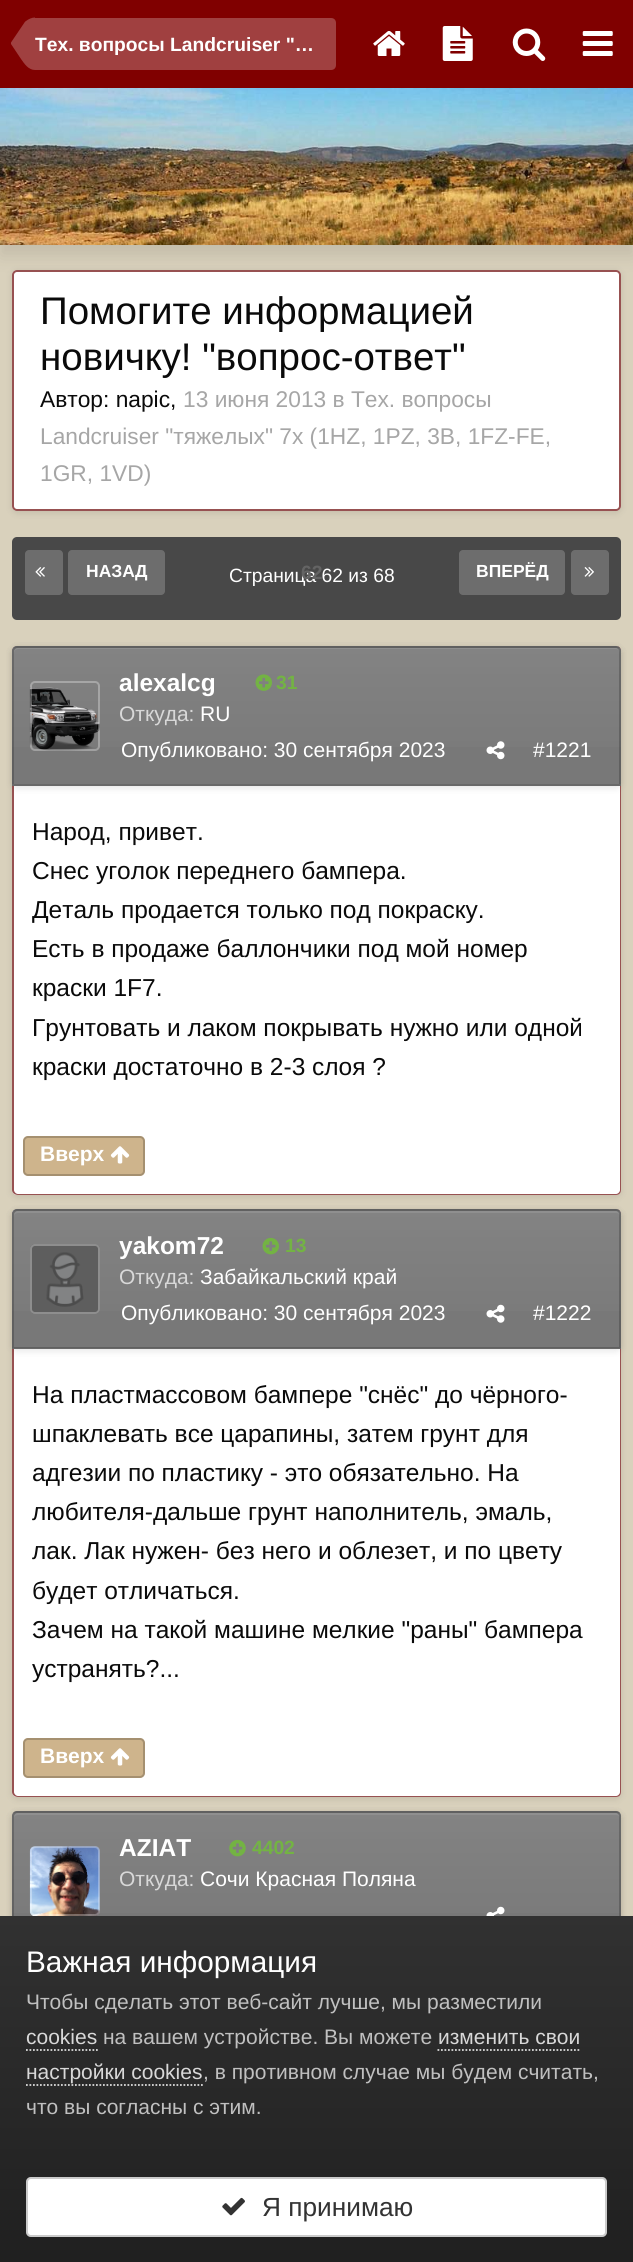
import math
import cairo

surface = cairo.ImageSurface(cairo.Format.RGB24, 633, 2262)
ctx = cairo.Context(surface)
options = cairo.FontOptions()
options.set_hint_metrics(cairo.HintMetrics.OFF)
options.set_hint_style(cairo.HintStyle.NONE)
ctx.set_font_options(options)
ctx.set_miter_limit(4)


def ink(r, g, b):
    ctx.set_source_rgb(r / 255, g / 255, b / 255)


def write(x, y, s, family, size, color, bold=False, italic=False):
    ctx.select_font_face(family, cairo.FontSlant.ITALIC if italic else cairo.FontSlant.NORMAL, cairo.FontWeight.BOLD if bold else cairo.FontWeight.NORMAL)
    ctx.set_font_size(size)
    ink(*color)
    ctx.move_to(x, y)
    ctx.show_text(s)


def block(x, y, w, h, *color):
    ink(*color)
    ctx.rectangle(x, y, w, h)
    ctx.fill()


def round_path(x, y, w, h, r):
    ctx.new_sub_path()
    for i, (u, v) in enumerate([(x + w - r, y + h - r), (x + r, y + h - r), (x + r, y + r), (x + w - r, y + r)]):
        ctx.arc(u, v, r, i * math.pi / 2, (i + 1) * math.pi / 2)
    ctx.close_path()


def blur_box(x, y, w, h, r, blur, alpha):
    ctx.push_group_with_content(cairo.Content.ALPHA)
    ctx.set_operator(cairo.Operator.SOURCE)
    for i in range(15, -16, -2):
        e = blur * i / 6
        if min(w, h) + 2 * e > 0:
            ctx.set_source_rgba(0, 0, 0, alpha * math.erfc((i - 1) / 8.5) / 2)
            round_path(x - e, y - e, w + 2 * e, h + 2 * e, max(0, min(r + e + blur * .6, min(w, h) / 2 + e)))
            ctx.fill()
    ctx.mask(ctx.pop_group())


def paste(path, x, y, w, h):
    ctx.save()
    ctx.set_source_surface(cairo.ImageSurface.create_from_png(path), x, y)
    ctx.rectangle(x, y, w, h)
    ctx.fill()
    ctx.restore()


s1 = dict(family="Liberation Sans", size=19.25, color=(255, 255, 255), bold=True)
s2 = dict(family="Liberation Sans", size=38.5, color=(10, 10, 10))
s3 = dict(family="Liberation Sans", size=22.75, color=(10, 10, 10))
s4 = dict(family="Liberation Sans", size=22.75, color=(166, 166, 166))
s5 = dict(family="Liberation Sans", size=17.5, color=(255, 255, 255), bold=True)
s6 = dict(family="Liberation Sans", size=19.25, color=(255, 255, 255))
s7 = dict(family="Liberation Sans", size=19.25, color=(100, 100, 100), bold=True)
s8 = dict(family="Liberation Sans", size=24.5, color=(255, 255, 255), bold=True)
s9 = dict(family="Liberation Sans", size=19.25, color=(115, 179, 67), bold=True)
s10 = dict(family="Liberation Sans", size=21, color=(216, 216, 216))
s11 = dict(family="Liberation Sans", size=21, color=(255, 255, 255))
s12 = dict(family="Liberation Sans", size=24.5, color=(10, 10, 10))
s13 = dict(family="Liberation Sans", size=21, color=(255, 255, 255), bold=True)
s14 = dict(family="Liberation Sans", size=29.75, color=(255, 255, 255))
s15 = dict(family="Liberation Sans", size=21, color=(192, 192, 192))
s16 = dict(family="Liberation Sans", size=26.25, color=(51, 51, 51))

ink(217, 209, 188)
ctx.paint()
ink(0, 0, 0)
blur_box(0, 98, 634, 158, 0, 9, 0.1)
block(0, 0, 633, 88, 128, 0, 0)
ink(160, 64, 64)
ctx.new_path()
ctx.move_to(35, 18)
ctx.line_to(331, 18)
ctx.curve_to(334, 18, 336, 20, 336, 23)
ctx.line_to(336, 65)
ctx.curve_to(336, 68, 334, 70, 331, 70)
ctx.line_to(35, 70)
ctx.close_path()
ctx.fill()
ctx.new_path()
ctx.move_to(11, 44)
ctx.line_to(35, 44)
ctx.line_to(35, 70)
ctx.curve_to(28.5, 70, 24.5, 64, 21, 59)
ctx.close_path()
ctx.move_to(35, 17.5)
ctx.line_to(35, 44)
ctx.line_to(11, 44)
ctx.line_to(11, 42.5)
ctx.line_to(23.5, 24)
ctx.curve_to(25, 22, 24.5, 22, 26, 21)
ctx.curve_to(28.5, 19, 32, 17.5, 35, 17.5)
ctx.close_path()
ctx.fill()
write(35, 51, "Тех. вопросы Landcruiser \"…", **s1)
paste("pic1.png", 373, 31, 32, 25)
paste("pic2.png", 442, 26, 31, 35)
paste("pic3.png", 512, 28, 34, 33)
paste("pic4.png", 582, 31, 31, 25)
paste("pic5.png", 0, 88, 633, 157)
ink(0, 0, 0)
blur_box(12, 271, 609, 242, 5, 3.5, 0.1)
ink(255, 255, 255)
round_path(12, 270, 609, 241, 5)
ctx.fill()
round_path(13, 271, 607, 239, 4)
ctx.set_source_rgba(0.404, 0, 0, 0.68)
ctx.stroke()
write(40, 324, "Помогите информацией", **s2)
write(40, 370, "новичку! \"вопрос-ответ\"", **s2)
write(40, 407, "Автор: napic,", **s3)
write(183, 407, "13 июня 2013 в Тех. вопросы", **s4)
write(40, 444, "Landcruiser \"тяжелых\" 7x (1HZ, 1PZ, 3B, 1FZ-FE,", **s4)
write(40, 481, "1GR, 1VD)", **s4)
ink(72, 72, 72)
round_path(12, 537, 609, 83, 5)
ctx.fill()
ink(109, 109, 109)
round_path(25, 550, 38, 45, 4)
ctx.fill()
paste("pic6.png", 35, 567, 10, 10)
round_path(68, 550, 97, 45, 4)
ctx.fill()
write(86, 577, "НАЗАД", **s5)
write(229, 582, "Страница 62 из 68", **s6)
write(301, 579, "62", **s7)
ink(109, 109, 109)
round_path(459, 550, 106, 45, 4)
ctx.fill()
write(476, 577, "ВПЕРЁД", **s5)
ink(109, 109, 109)
round_path(571, 550, 38, 45, 4)
ctx.fill()
paste("pic7.png", 584, 567, 10, 10)
ink(0, 0, 0)
blur_box(12, 648, 609, 549, 5, 3.5, 0.1)
ink(255, 255, 255)
round_path(12, 646, 609, 549, 5)
ctx.fill()
ctx.set_source_rgba(0.404, 0, 0, 0.68)
ctx.set_fill_rule(cairo.FillRule.EVEN_ODD)
ctx.new_path()
ctx.move_to(18, 646)
ctx.line_to(616, 646)
ctx.curve_to(619, 646, 621, 648, 621, 651)
ctx.line_to(621, 1190)
ctx.curve_to(621, 1193, 619, 1195, 616, 1195)
ctx.line_to(18, 1195)
ctx.curve_to(15, 1195, 12, 1193, 12, 1190)
ctx.line_to(12, 651)
ctx.curve_to(12, 648, 15, 646, 18, 646)
ctx.close_path()
ctx.move_to(18, 646)
ctx.line_to(616, 646)
ctx.curve_to(618, 646, 620, 648, 620, 651)
ctx.line_to(620, 1190)
ctx.curve_to(620, 1192, 618, 1194, 616, 1194)
ctx.line_to(18, 1194)
ctx.curve_to(16, 1194, 14, 1192, 14, 1190)
ctx.line_to(14, 651)
ctx.curve_to(14, 648, 16, 646, 18, 646)
ctx.close_path()
ctx.fill()
ink(0, 0, 0)
blur_box(12, 648, 609, 140, 5, 3.5, 0.1)
ink(120, 120, 120)
ctx.new_path()
ctx.move_to(17, 646)
ctx.line_to(616, 646)
ctx.curve_to(619, 646, 621, 648, 621, 651)
ctx.line_to(621, 786)
ctx.line_to(12, 786)
ctx.line_to(12, 651)
ctx.curve_to(12, 648, 14, 646, 17, 646)
ctx.close_path()
ctx.fill()
gradient = cairo.LinearGradient(317, 648, 317, 784)
gradient.add_color_stop_rgba(0, 1, 1, 1, 0.08)
gradient.add_color_stop_rgba(1, 1, 1, 1, 0)
ctx.set_source(gradient)
ctx.rectangle(12, 648, 609, 99)
ctx.fill()
gradient = cairo.LinearGradient(317, 784, 317, 921)
gradient.add_color_stop_rgba(0, 0.514, 0.514, 0.514, 1)
gradient.add_color_stop_rgba(1, 0.471, 0.471, 0.471, 1)
ctx.set_source(gradient)
ctx.rectangle(12, 784, 609, 2)
ctx.fill()
ink(143, 143, 143)
ctx.set_fill_rule(cairo.FillRule.WINDING)
ctx.new_path()
ctx.move_to(18, 649)
ctx.line_to(616, 649)
ctx.curve_to(618, 649, 620, 651, 620, 653)
ctx.line_to(620, 652)
ctx.curve_to(620, 650, 618, 648, 616, 648)
ctx.line_to(18, 648)
ctx.curve_to(16, 648, 14, 650, 14, 652)
ctx.line_to(14, 653)
ctx.curve_to(14, 651, 16, 649, 18, 649)
ctx.close_path()
ctx.fill()
ctx.new_path()
ctx.move_to(17, 647)
ctx.line_to(616, 647)
ctx.curve_to(618, 647, 620, 649, 620, 651)
ctx.line_to(620, 785)
ctx.line_to(13, 785)
ctx.line_to(13, 651)
ctx.curve_to(13, 649, 15, 647, 17, 647)
ctx.close_path()
ctx.set_source_rgba(0, 0, 0, 0.2)
ctx.stroke()
paste("pic8.png", 29, 687, 71, 64)
round_path(31, 682, 68, 68, 4)
ctx.set_source_rgba(1, 1, 1, 0.3)
ctx.stroke()
write(119, 691, "alexalcg", **s8)
paste("pic9.png", 255, 674, 17, 17)
write(276, 689, "31", **s9)
write(119, 721, "Откуда:", **s10)
write(200, 721, "RU", **s11)
write(121, 757, "Опубликовано: 30 сентября 2023", **s11)
paste("pic10.png", 486, 741, 19, 19)
write(533, 757, "#1221", **s11)
write(32, 840, "Народ, привет.", **s12)
write(32, 879, "Снес уголок переднего бампера.", **s12)
write(32, 918, "Деталь продается только под покраску.", **s12)
write(32, 957, "Есть в продаже баллончики под мой номер", **s12)
write(32, 996, "краски 1F7.", **s12)
write(32, 1036, "Грунтовать и лаком покрывать нужно или одной", **s12)
write(32, 1075, "краски достаточно в 2-3 слоя ?", **s12)
ink(206, 180, 140)
round_path(23, 1136, 122, 40, 5)
ctx.fill()
paste("pic11.png", 110, 1146, 20, 18)
round_path(24, 1137, 120, 38, 4)
ctx.set_source_rgba(0, 0, 0, 0.2)
ctx.stroke()
write(40, 1161, "Вверх", **s13)
ink(0, 0, 0)
blur_box(12, 1211, 609, 588, 5, 3.5, 0.1)
ink(255, 255, 255)
round_path(12, 1209, 609, 588, 5)
ctx.fill()
ctx.set_source_rgba(0.404, 0, 0, 0.68)
ctx.set_fill_rule(cairo.FillRule.EVEN_ODD)
ctx.new_path()
ctx.move_to(18, 1209)
ctx.line_to(616, 1209)
ctx.curve_to(619, 1209, 621, 1212, 621, 1214)
ctx.line_to(621, 1792)
ctx.curve_to(621, 1795, 619, 1797, 616, 1797)
ctx.line_to(18, 1797)
ctx.curve_to(15, 1797, 12, 1795, 12, 1792)
ctx.line_to(12, 1214)
ctx.curve_to(12, 1212, 15, 1209, 18, 1209)
ctx.close_path()
ctx.move_to(18, 1209)
ctx.line_to(616, 1209)
ctx.curve_to(618, 1209, 620, 1212, 620, 1214)
ctx.line_to(620, 1792)
ctx.curve_to(620, 1794, 618, 1796, 616, 1796)
ctx.line_to(18, 1796)
ctx.curve_to(16, 1796, 14, 1794, 14, 1792)
ctx.line_to(14, 1214)
ctx.curve_to(14, 1212, 16, 1209, 18, 1209)
ctx.close_path()
ctx.fill()
ink(0, 0, 0)
blur_box(12, 1211, 609, 140, 5, 3.5, 0.1)
ink(120, 120, 120)
ctx.new_path()
ctx.move_to(17, 1209)
ctx.line_to(616, 1209)
ctx.curve_to(619, 1209, 621, 1211, 621, 1214)
ctx.line_to(621, 1349)
ctx.line_to(12, 1349)
ctx.line_to(12, 1214)
ctx.curve_to(12, 1211, 14, 1209, 17, 1209)
ctx.close_path()
ctx.fill()
gradient = cairo.LinearGradient(317, 1211, 317, 1348)
gradient.add_color_stop_rgba(0, 1, 1, 1, 0.08)
gradient.add_color_stop_rgba(1, 1, 1, 1, 0)
ctx.set_source(gradient)
ctx.rectangle(12, 1211, 609, 100)
ctx.fill()
gradient = cairo.LinearGradient(317, 1348, 317, 1484)
gradient.add_color_stop_rgba(0, 0.514, 0.514, 0.514, 1)
gradient.add_color_stop_rgba(1, 0.471, 0.471, 0.471, 1)
ctx.set_source(gradient)
ctx.rectangle(12, 1348, 609, 1)
ctx.fill()
ink(143, 143, 143)
ctx.set_fill_rule(cairo.FillRule.WINDING)
ctx.new_path()
ctx.move_to(18, 1213)
ctx.line_to(616, 1213)
ctx.curve_to(618, 1213, 620, 1214, 620, 1216)
ctx.line_to(620, 1215)
ctx.curve_to(620, 1213, 618, 1211, 616, 1211)
ctx.line_to(18, 1211)
ctx.curve_to(16, 1211, 14, 1213, 14, 1215)
ctx.line_to(14, 1216)
ctx.curve_to(14, 1214, 16, 1213, 18, 1213)
ctx.close_path()
ctx.fill()
ctx.new_path()
ctx.move_to(17, 1210)
ctx.line_to(616, 1210)
ctx.curve_to(618, 1210, 620, 1212, 620, 1214)
ctx.line_to(620, 1348)
ctx.line_to(13, 1348)
ctx.line_to(13, 1214)
ctx.curve_to(13, 1212, 15, 1210, 17, 1210)
ctx.close_path()
ctx.set_source_rgba(0, 0, 0, 0.2)
ctx.stroke()
ink(72, 72, 72)
round_path(30, 1244, 70, 70, 5)
ctx.fill()
ctx.set_source_rgba(1, 1, 1, 0.12)
round_path(30, 1244, 70, 70, 5)
ctx.fill()
paste("pic12.png", 46, 1252, 38, 55)
round_path(31, 1245, 68, 68, 4)
ctx.set_source_rgba(1, 1, 1, 0.3)
ctx.stroke()
write(119, 1254, "yakom72", **s8)
paste("pic13.png", 262, 1237, 17, 18)
write(285, 1252, "13", **s9)
write(119, 1284, "Откуда:", **s10)
write(200, 1284, "Забайкальский край", **s11)
write(121, 1320, "Опубликовано: 30 сентября 2023", **s11)
paste("pic14.png", 486, 1304, 19, 19)
write(533, 1320, "#1222", **s11)
write(32, 1403, "На пластмассовом бампере \"снёс\" до чёрного-", **s12)
write(32, 1442, "шпаклевать все царапины, затем грунт для", **s12)
write(32, 1481, "адгезии по пластику - это обязательно. На", **s12)
write(32, 1520, "любителя-дальше грунт наполнитель, эмаль,", **s12)
write(32, 1559, "лак. Лак нужен- без него и облезет, и по цвету", **s12)
write(32, 1599, "будет отличаться.", **s12)
write(32, 1638, "Зачем на такой машине мелкие \"раны\" бампера", **s12)
write(32, 1677, "устранять?...", **s12)
ink(206, 180, 140)
round_path(23, 1738, 122, 40, 5)
ctx.fill()
paste("pic11.png", 110, 1748, 20, 18)
round_path(24, 1739, 120, 38, 4)
ctx.set_source_rgba(0, 0, 0, 0.2)
ctx.stroke()
write(40, 1763, "Вверх", **s13)
ink(0, 0, 0)
blur_box(12, 1813, 609, 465, 5, 3.5, 0.1)
blur_box(12, 1813, 609, 140, 5, 3.5, 0.1)
ink(120, 120, 120)
ctx.new_path()
ctx.move_to(17, 1811)
ctx.line_to(616, 1811)
ctx.curve_to(619, 1811, 621, 1813, 621, 1816)
ctx.line_to(621, 1951)
ctx.line_to(12, 1951)
ctx.line_to(12, 1816)
ctx.curve_to(12, 1813, 14, 1811, 17, 1811)
ctx.close_path()
ctx.fill()
gradient = cairo.LinearGradient(317, 1813, 317, 1950)
gradient.add_color_stop_rgba(0, 1, 1, 1, 0.08)
gradient.add_color_stop_rgba(1, 1, 1, 1, 0)
ctx.set_source(gradient)
ctx.rectangle(12, 1813, 609, 100)
ctx.fill()
ink(143, 143, 143)
ctx.new_path()
ctx.move_to(18, 1815)
ctx.line_to(616, 1815)
ctx.curve_to(618, 1815, 620, 1816, 620, 1818)
ctx.line_to(620, 1817)
ctx.curve_to(620, 1815, 618, 1813, 616, 1813)
ctx.line_to(18, 1813)
ctx.curve_to(16, 1813, 14, 1815, 14, 1817)
ctx.line_to(14, 1818)
ctx.curve_to(14, 1816, 16, 1815, 18, 1815)
ctx.close_path()
ctx.fill()
ctx.new_path()
ctx.move_to(17, 1812)
ctx.line_to(616, 1812)
ctx.curve_to(618, 1812, 620, 1814, 620, 1816)
ctx.line_to(620, 1950)
ctx.line_to(13, 1950)
ctx.line_to(13, 1816)
ctx.curve_to(13, 1814, 15, 1812, 17, 1812)
ctx.close_path()
ctx.set_source_rgba(0, 0, 0, 0.2)
ctx.stroke()
paste("pic15.png", 29, 1846, 71, 70)
round_path(31, 1847, 68, 68, 4)
ctx.set_source_rgba(1, 1, 1, 0.3)
ctx.stroke()
write(119, 1856, "AZIAT", **s8)
paste("pic16.png", 229, 1839, 17, 18)
write(252, 1854, "4402", **s9)
write(119, 1886, "Откуда:", **s10)
write(200, 1886, "Сочи Красная Поляна", **s11)
paste("pic17.png", 486, 1906, 19, 10)
gradient = cairo.LinearGradient(317, 1916, 317, 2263)
gradient.add_color_stop_rgba(0, 0.192, 0.192, 0.192, 1)
gradient.add_color_stop_rgba(1, 0.125, 0.125, 0.125, 1)
ctx.set_source(gradient)
ctx.rectangle(0, 1916, 633, 346)
ctx.fill()
write(26, 1972, "Важная информация", **s14)
write(26, 2009, "Чтобы сделать этот веб-сайт лучше, мы разместили", **s15)
write(26, 2044, "cookies", **s10)
ctx.new_path()
ctx.move_to(26, 2050)
ctx.line_to(98, 2050)
ink(218, 218, 218)
ctx.set_line_width(1.8)
ctx.set_dash([1.75, 1.75])
ctx.stroke()
write(103, 2044, "на вашем устройстве. Вы можете", **s15)
write(438, 2044, "изменить свои", **s10)
ctx.new_path()
ctx.move_to(437.5, 2050)
ctx.line_to(581, 2050)
ink(218, 218, 218)
ctx.stroke()
write(26, 2079, "настройки cookies", **s10)
ctx.new_path()
ctx.move_to(26, 2085)
ctx.line_to(203, 2085)
ink(218, 218, 218)
ctx.stroke()
write(203, 2079, ", в противном случае мы будем считать,", **s15)
write(26, 2114, "что вы согласны с этим.", **s15)
ink(255, 255, 255)
round_path(26, 2177, 581, 60, 5)
ctx.fill()
paste("pic18.png", 222, 2197, 23, 19)
round_path(27, 2178, 579, 58, 4)
ctx.set_source_rgba(0.2, 0.2, 0.2, 0.25)
ctx.set_line_width(2)
ctx.set_dash([])
ctx.stroke()
write(262, 2216, "Я принимаю", **s16)
surface.write_to_png("screenshot.png")
